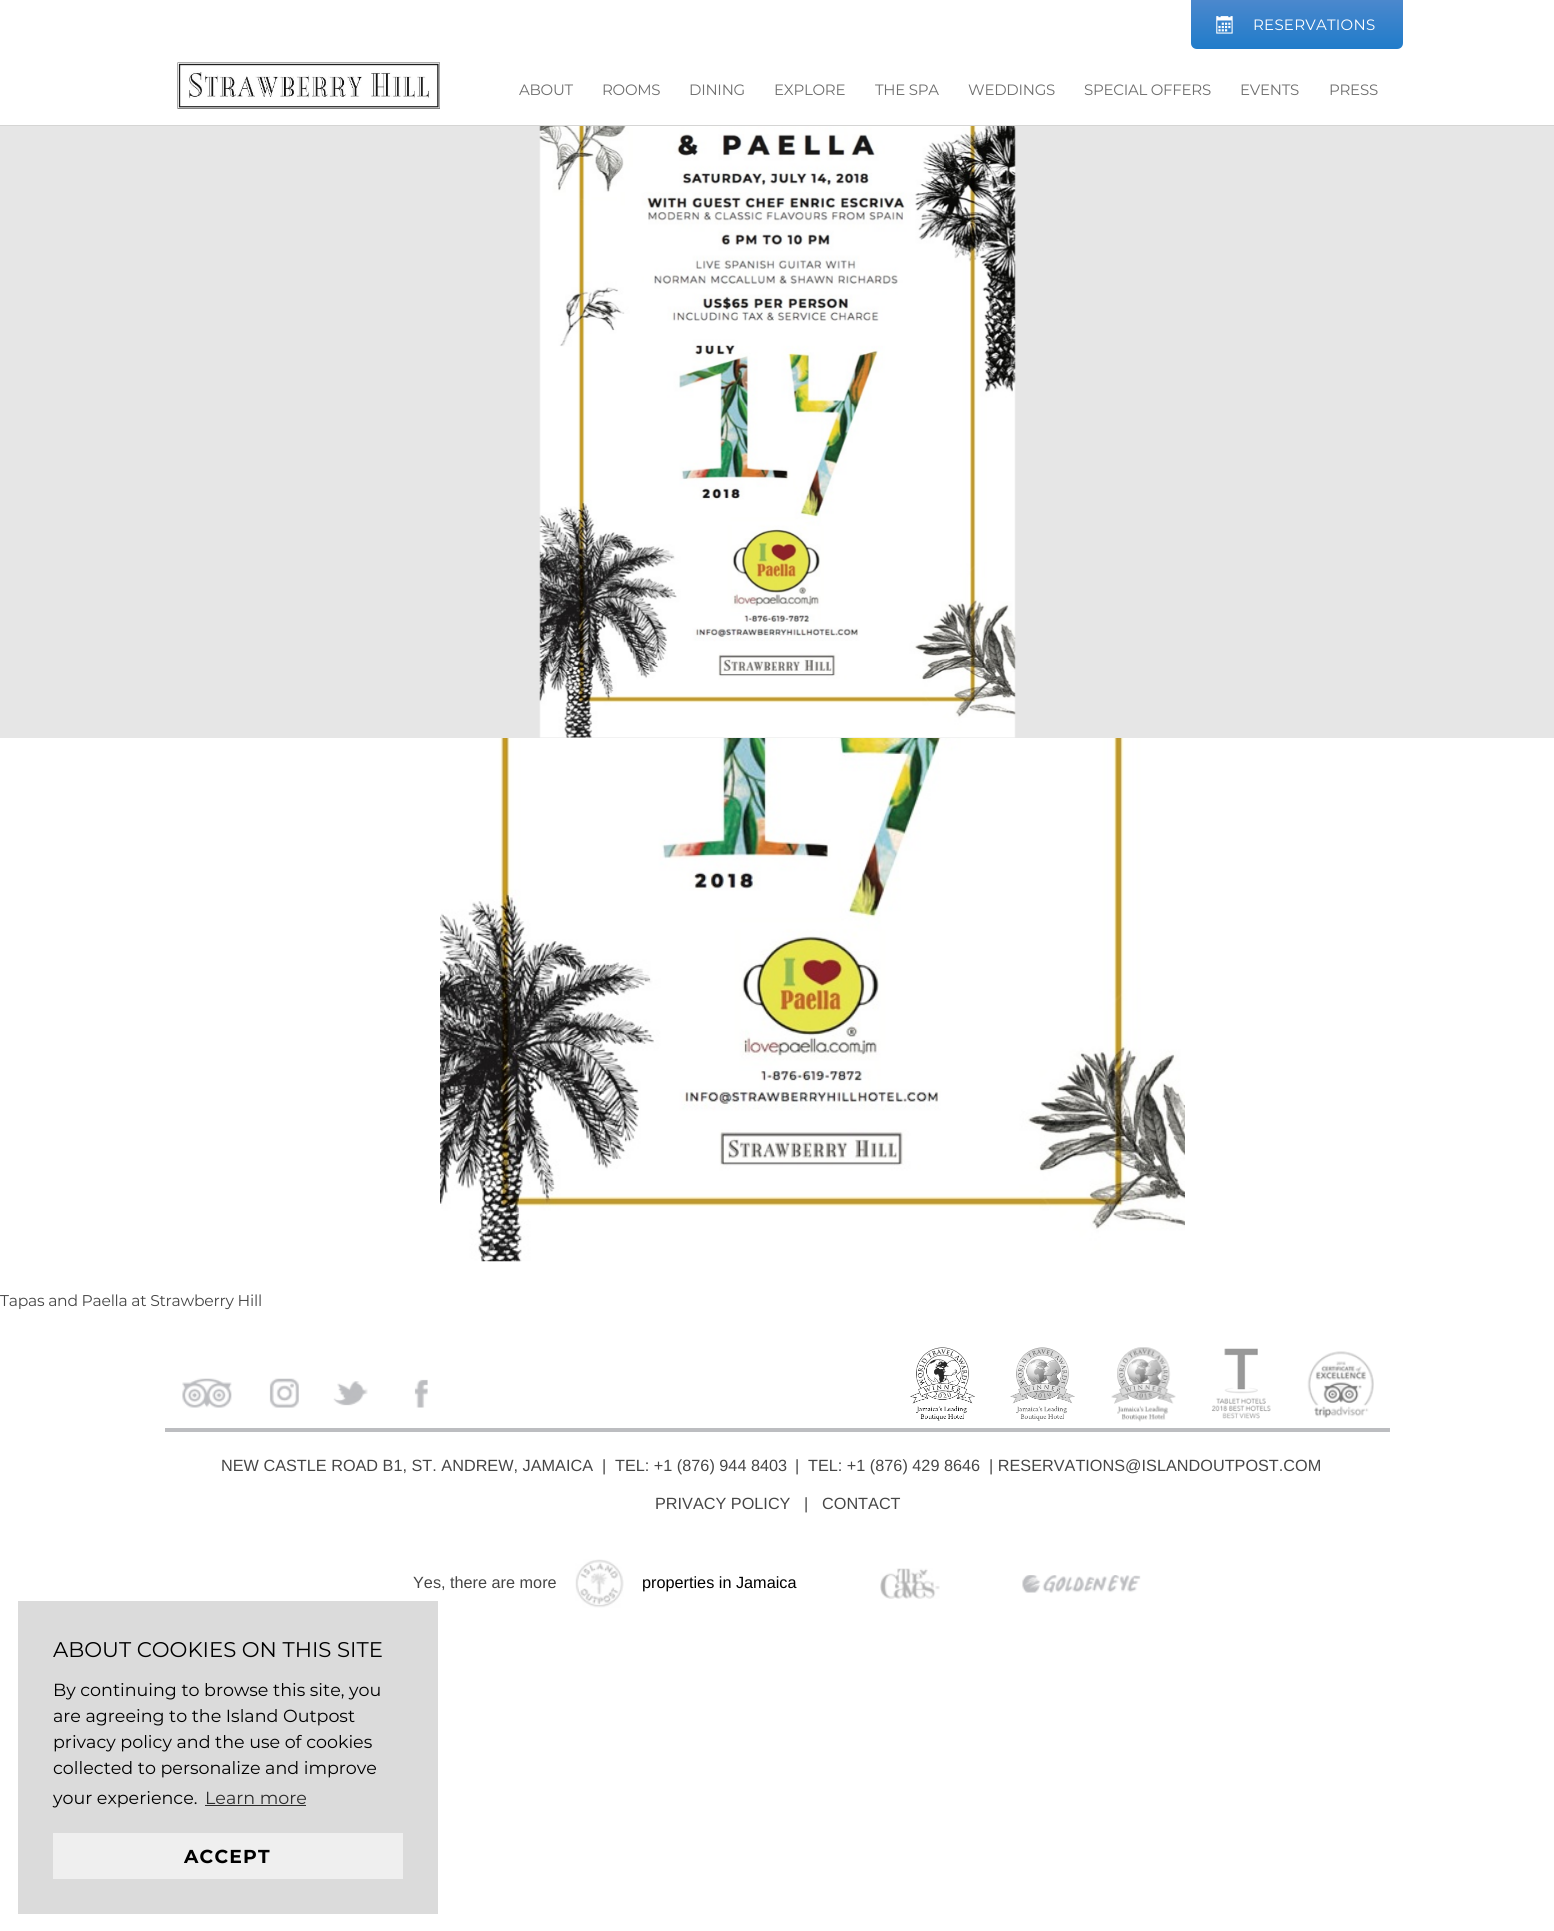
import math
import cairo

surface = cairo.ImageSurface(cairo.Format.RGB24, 1554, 1931)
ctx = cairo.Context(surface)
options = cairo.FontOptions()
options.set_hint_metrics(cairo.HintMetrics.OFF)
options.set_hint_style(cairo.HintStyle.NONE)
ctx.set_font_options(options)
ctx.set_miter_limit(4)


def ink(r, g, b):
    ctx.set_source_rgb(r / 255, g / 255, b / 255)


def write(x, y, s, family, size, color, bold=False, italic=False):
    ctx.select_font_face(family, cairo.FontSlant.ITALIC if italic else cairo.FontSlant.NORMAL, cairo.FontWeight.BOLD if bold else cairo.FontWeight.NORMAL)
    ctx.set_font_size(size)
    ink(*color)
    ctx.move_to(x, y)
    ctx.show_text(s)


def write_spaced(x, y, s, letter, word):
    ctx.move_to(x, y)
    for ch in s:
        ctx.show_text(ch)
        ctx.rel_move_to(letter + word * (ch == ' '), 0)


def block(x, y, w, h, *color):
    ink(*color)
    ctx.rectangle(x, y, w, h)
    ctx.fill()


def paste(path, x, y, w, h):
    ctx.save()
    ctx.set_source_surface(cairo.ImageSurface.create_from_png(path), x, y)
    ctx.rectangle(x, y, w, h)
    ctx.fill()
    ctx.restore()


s1 = dict(family="Liberation Sans", size=16.25, color=(70, 70, 70))
s2 = dict(family="Liberation Sans", size=16.25, color=(0, 0, 0))
s3 = dict(family="Montserrat", size=21.25, color=(0, 0, 0))
s4 = dict(family="Montserrat", size=17.5, color=(0, 0, 0))
s5 = dict(family="Montserrat", size=17.5, color=(44, 44, 44))

ink(255, 255, 255)
ctx.paint()
block(0, 125, 1554, 1, 213, 213, 212)
gradient = cairo.LinearGradient(1297, 0, 1297, 49)
gradient.add_color_stop_rgba(0, 0.294, 0.533, 0.804, 1)
gradient.add_color_stop_rgba(1, 0.125, 0.486, 0.792, 1)
ctx.set_source(gradient)
ctx.new_path()
ctx.move_to(1191, 0)
ctx.line_to(1403, 0)
ctx.line_to(1403, 43)
ctx.curve_to(1403, 46.5, 1400.5, 49, 1397, 49)
ctx.line_to(1197, 49)
ctx.curve_to(1193.5, 49, 1191, 46.5, 1191, 43)
ctx.close_path()
ctx.fill()
paste("pic1.png", 1216, 16, 17, 18)
ctx.select_font_face("Montserrat")
ctx.set_font_size(15)
ink(255, 255, 255)
write_spaced(1253, 30, "RESERVATIONS", 0.25, 0)
paste("pic2.png", 177, 62, 263, 47)
ink(110, 110, 110)
write_spaced(519, 95, "ABOUT", -0.25, 0)
write_spaced(602, 95, "ROOMS", -0.25, 0)
write_spaced(689, 95, "DINING", -0.25, 0)
write_spaced(774, 95, "EXPLORE", -0.25, 0)
write_spaced(875, 95, "THE SPA", -0.25, 0)
write_spaced(968, 95, "WEDDINGS", -0.25, 0)
write_spaced(1084, 95, "SPECIAL OFFERS", -0.25, 0)
write_spaced(1240, 95, "EVENTS", -0.25, 0)
write_spaced(1329, 95, "PRESS", -0.25, 0)
block(0, 126, 1554, 612, 230, 230, 230)
paste("pic3.png", 539, 126, 477, 612)
paste("pic4.png", 440, 738, 745, 524)
ctx.set_font_size(15.6)
ink(70, 70, 70)
write_spaced(0, 1306, "Tapas and Paella at Strawberry Hill", -0.25, 0)
paste("pic5.png", 182, 1378, 50, 30)
paste("pic6.png", 269, 1378, 30, 30)
paste("pic7.png", 333, 1381, 35, 25)
paste("pic8.png", 414, 1379, 14, 29)
paste("pic9.png", 910, 1347, 65, 74)
paste("pic10.png", 1010, 1347, 65, 74)
paste("pic11.png", 1111, 1347, 65, 75)
paste("pic12.png", 1211, 1348, 60, 71)
paste("pic13.png", 1307, 1351, 67, 67)
block(165, 1428, 1225, 4, 188, 189, 192)
write(221, 1471, "NEW CASTLE ROAD B1, ST. ANDREW, JAMAICA", **s1)
write(602, 1471, "|", **s1)
write(615, 1471, "TEL: +1 (876) 944 8403", **s1)
write(795, 1471, "|", **s1)
write(808, 1471, "TEL: +1 (876) 429 8646", **s1)
write(989, 1471, "| RESERVATIONS@ISLANDOUTPOST.COM", **s1)
write(655, 1509, "PRIVACY POLICY", **s1)
write(804, 1509, "|", **s1)
write(822, 1509, "CONTACT", **s1)
write(413, 1588, "Yes, there are more", **s1)
paste("pic14.png", 575, 1559, 49, 49)
write(642, 1588, "properties in Jamaica", **s2)
paste("pic15.png", 880, 1568, 60, 31)
paste("pic16.png", 1022, 1575, 119, 18)
block(18, 1601, 420, 313, 219, 219, 219)
write(53, 1657, "ABOUT COOKIES ON THIS SITE", **s3)
write(53, 1696, "By continuing to browse this site, you", **s4)
write(53, 1722, "are agreeing to the Island Outpost", **s4)
write(53, 1748, "privacy policy and the use of cookies", **s4)
write(53, 1774, "collected to personalize and improve", **s4)
write(53, 1804, "your experience.", **s4)
write(205, 1804, "Learn more", **s5)
block(205, 1805, 101, 1, 44, 44, 44)
block(53, 1833, 350, 46, 239, 239, 239)
ctx.select_font_face("Montserrat", cairo.FontSlant.NORMAL, cairo.FontWeight.BOLD)
ctx.set_font_size(18.75)
ink(0, 0, 0)
write_spaced(184, 1863, "ACCEPT", 1.25, 0)
surface.write_to_png("screenshot.png")
